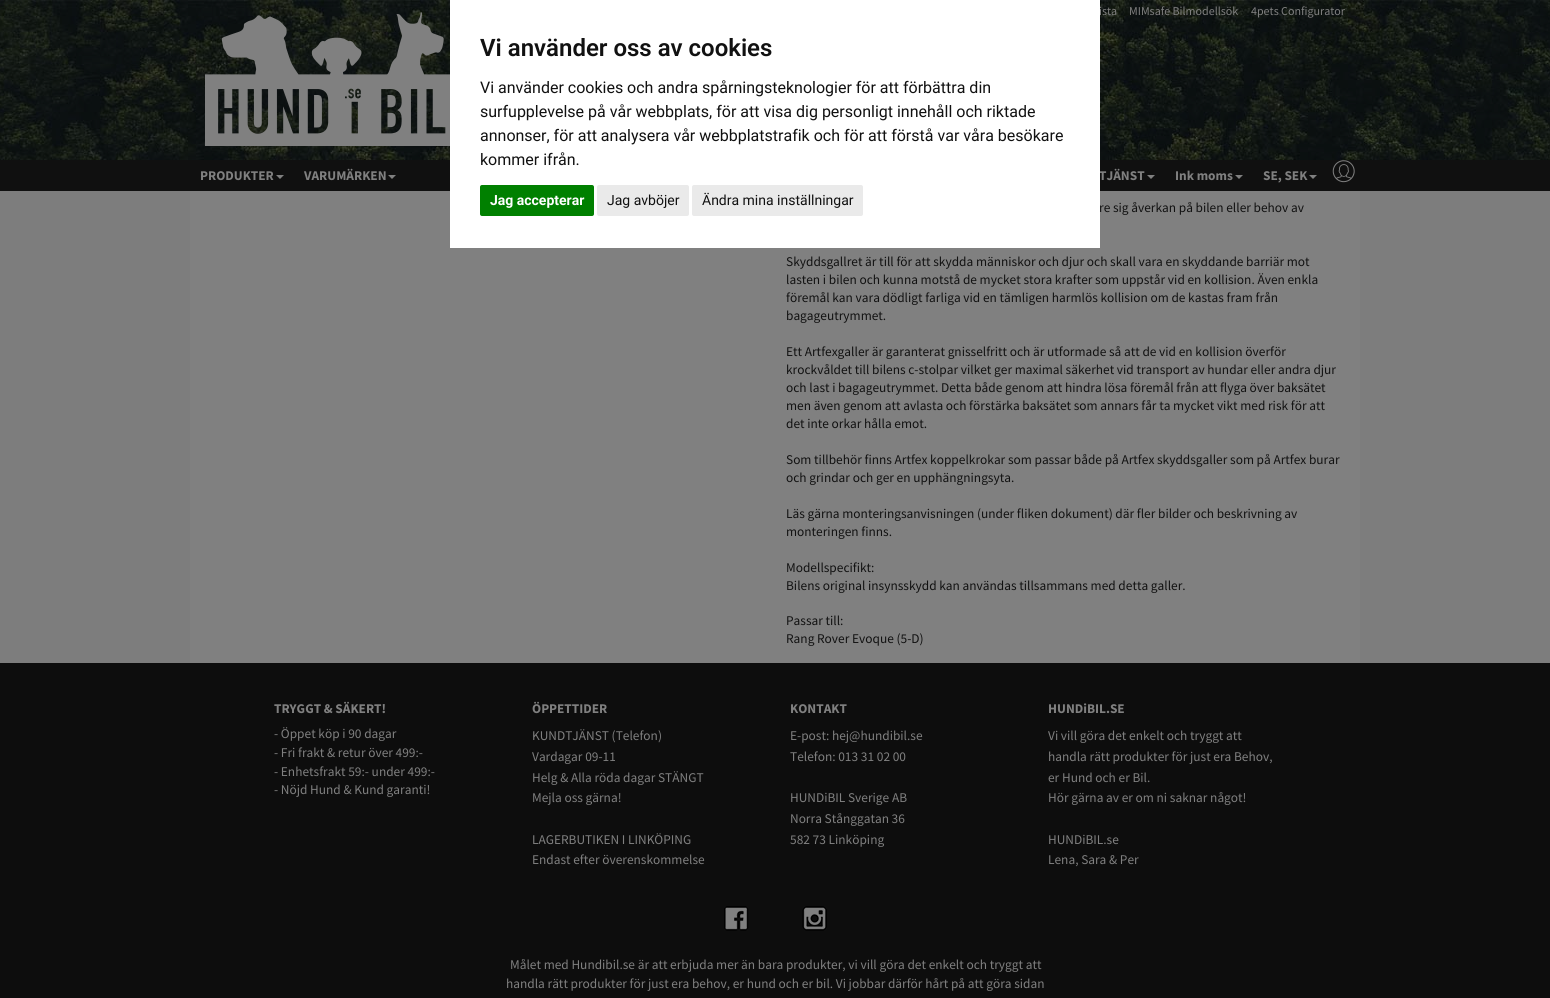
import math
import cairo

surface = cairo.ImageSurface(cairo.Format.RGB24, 1550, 998)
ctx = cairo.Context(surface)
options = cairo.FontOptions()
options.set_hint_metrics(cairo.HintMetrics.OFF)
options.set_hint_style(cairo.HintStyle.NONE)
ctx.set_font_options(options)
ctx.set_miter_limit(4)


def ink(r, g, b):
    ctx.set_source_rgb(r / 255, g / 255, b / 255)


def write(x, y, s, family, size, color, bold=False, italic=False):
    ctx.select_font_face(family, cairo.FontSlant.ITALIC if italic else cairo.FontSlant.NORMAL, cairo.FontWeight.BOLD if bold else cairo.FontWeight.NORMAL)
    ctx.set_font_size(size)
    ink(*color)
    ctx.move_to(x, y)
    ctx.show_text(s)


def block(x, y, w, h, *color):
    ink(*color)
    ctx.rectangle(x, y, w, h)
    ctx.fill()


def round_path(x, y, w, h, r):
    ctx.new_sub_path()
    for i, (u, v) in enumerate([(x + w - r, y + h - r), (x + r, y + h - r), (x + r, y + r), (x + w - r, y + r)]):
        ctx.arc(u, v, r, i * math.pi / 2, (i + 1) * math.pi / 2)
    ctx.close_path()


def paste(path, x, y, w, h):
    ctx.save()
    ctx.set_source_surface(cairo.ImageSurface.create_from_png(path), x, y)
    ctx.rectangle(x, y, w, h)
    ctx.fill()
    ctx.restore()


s1 = dict(family="Source Sans Pro", size=12, color=(128, 128, 128))
s2 = dict(family="Source Sans Pro", size=13.35, color=(128, 128, 128), bold=True)
s3 = dict(family="Source Sans Pro", size=13.35, color=(17, 17, 17))
s4 = dict(family="Roboto SemiBold", size=24, color=(17, 17, 17))
s5 = dict(family="Roboto", size=16, color=(17, 17, 17))
s6 = dict(family="Roboto", size=14, color=(255, 255, 255), bold=True)
s7 = dict(family="Roboto", size=14, color=(17, 17, 17))
s8 = dict(family="Source Sans Pro", size=13.35, color=(128, 128, 128))

ink(125, 125, 125)
ctx.paint()
paste("pic1.png", 0, 0, 1550, 160)
paste("pic2.png", 205, 12, 245, 134)
write(1099, 15, "ista", **s1)
write(1129, 15, "MIMsafe Bilmodellsök", **s1)
write(1251, 15, "4pets Configurator", **s1)
block(0, 160, 1550, 31, 16, 16, 16)
write(200, 180, "PRODUKTER", **s2)
ctx.new_path()
ctx.move_to(276, 175)
ctx.line_to(284, 175)
ctx.line_to(280, 179)
ctx.close_path()
ctx.fill()
write(304, 180, "VARUMÄRKEN", **s2)
ctx.new_path()
ctx.move_to(388, 175)
ctx.line_to(396, 175)
ctx.line_to(392, 179)
ctx.close_path()
ctx.fill()
write(1099, 180, "TJÄNST", **s2)
ctx.new_path()
ctx.move_to(1147, 175)
ctx.line_to(1155, 175)
ctx.line_to(1151, 179)
ctx.close_path()
ctx.fill()
write(1175, 180, "Ink moms", **s2)
ctx.new_path()
ctx.move_to(1235, 175)
ctx.line_to(1243, 175)
ctx.line_to(1239, 179)
ctx.close_path()
ctx.fill()
write(1263, 180, "SE, SEK", **s2)
ctx.new_path()
ctx.move_to(1309, 175)
ctx.line_to(1317, 175)
ctx.line_to(1313, 179)
ctx.close_path()
ctx.fill()
paste("pic3.png", 1332, 160, 23, 23)
block(190, 191, 1170, 472, 128, 128, 128)
write(1099, 212, "re sig åverkan på bilen eller behov av", **s3)
block(450, 0, 650, 248, 255, 255, 255)
write(480, 56, "Vi använder oss av cookies", **s4)
write(480, 93, "Vi använder cookies och andra spårningsteknologier för att förbättra din", **s5)
write(480, 117, "surfupplevelse på vår webbplats, för att visa dig personligt innehåll och riktade", **s5)
write(480, 141, "annonser, för att analysera vår webbplatstrafik och för att förstå var våra besökare", **s5)
write(480, 165, "kommer ifrån.", **s5)
ink(0, 128, 0)
round_path(480, 185, 114, 31, 2)
ctx.fill()
write(490, 205, "Jag accepterar", **s6)
ink(234, 234, 234)
round_path(597, 185, 92, 31, 2)
ctx.fill()
write(607, 205, "Jag avböjer", **s7)
ink(234, 234, 234)
round_path(692, 185, 171, 31, 2)
ctx.fill()
write(702, 205, "Ändra mina inställningar", **s7)
write(786, 266, "Skyddsgallret är till för att skydda människor och djur och skall vara en skyddande barriär mot", **s3)
write(786, 284, "lasten i bilen och kunna motstå de mycket stora krafter som uppstår vid en kollision. Även enkla", **s3)
write(786, 302, "föremål kan vara dödligt farliga vid en tämligen harmlös kollision om de kastas fram från", **s3)
write(786, 320, "bagageutrymmet.", **s3)
write(786, 356, "Ett Artfexgaller är garanterat gnisselfritt och är utformade så att de vid en kollision överför", **s3)
write(786, 374, "krockvåldet till bilens c-stolpar vilket ger maximal säkerhet vid transport av hundar eller andra djur", **s3)
write(786, 392, "och last i bagageutrymmet. Detta både genom att hindra lösa föremål från att flyga över baksätet", **s3)
write(786, 410, "men även genom att avlasta och förstärka baksätet som annars får ta mycket vikt med risk för att", **s3)
write(786, 428, "det inte orkar hålla emot.", **s3)
write(786, 464, "Som tillbehör finns Artfex koppelkrokar som passar både på Artfex skyddsgaller som på Artfex burar", **s3)
write(786, 482, "och grindar och ger en upphängningsyta.", **s3)
write(786, 518, "Läs gärna monteringsanvisningen (under fliken dokument) där fler bilder och beskrivning av", **s3)
write(786, 536, "monteringen finns.", **s3)
write(786, 572, "Modellspecifikt:", **s3)
write(786, 590, "Bilens original insynsskydd kan användas tillsammans med detta galler.", **s3)
write(786, 625, "Passar till:", **s3)
write(786, 643, "Rang Rover Evoque (5-D)", **s3)
block(0, 663, 1550, 335, 13, 13, 13)
write(274, 713, "TRYGGT & SÄKERT!", **s2)
write(274, 738, "- Öppet köp i 90 dagar", **s8)
write(274, 757, "- Fri frakt & retur över 499:-", **s8)
write(274, 776, "- Enhetsfrakt 59:- under 499:-", **s8)
write(274, 794, "- Nöjd Hund & Kund garanti!", **s8)
write(532, 713, "ÖPPETTIDER", **s2)
write(532, 740, "KUNDTJÄNST (Telefon)", **s8)
write(532, 761, "Vardagar 09-11", **s8)
write(532, 782, "Helg & Alla röda dagar STÄNGT", **s8)
write(532, 802, "Mejla oss gärna!", **s8)
write(532, 844, "LAGERBUTIKEN I LINKÖPING", **s8)
write(532, 864, "Endast efter överenskommelse", **s8)
write(790, 713, "KONTAKT", **s2)
write(790, 740, "E-post: hej@hundibil.se", **s8)
write(790, 761, "Telefon: 013 31 02 00", **s8)
write(790, 802, "HUNDiBIL Sverige AB", **s8)
write(790, 823, "Norra Stånggatan 36", **s8)
write(790, 844, "582 73 Linköping", **s8)
write(1048, 713, "HUNDiBIL.SE", **s2)
write(1048, 740, "Vi vill göra det enkelt och tryggt att", **s8)
write(1048, 761, "handla rätt produkter för just era Behov,", **s8)
write(1048, 782, "er Hund och er Bil.", **s8)
write(1048, 802, "Hör gärna av er om ni saknar något!", **s8)
write(1048, 844, "HUNDiBIL.se", **s8)
write(1048, 864, "Lena, Sara & Per", **s8)
paste("pic4.png", 724, 906, 25, 25)
paste("pic5.png", 802, 906, 25, 25)
write(510, 969, "Målet med Hundibil.se är att erbjuda mer än bara produkter, vi vill göra det enkelt och tryggt att", **s8)
write(506, 988, "handla rätt produkter för just era behov, er hund och er bil. Vi jobbar därför hårt på att göra sidan", **s8)
surface.write_to_png("screenshot.png")
